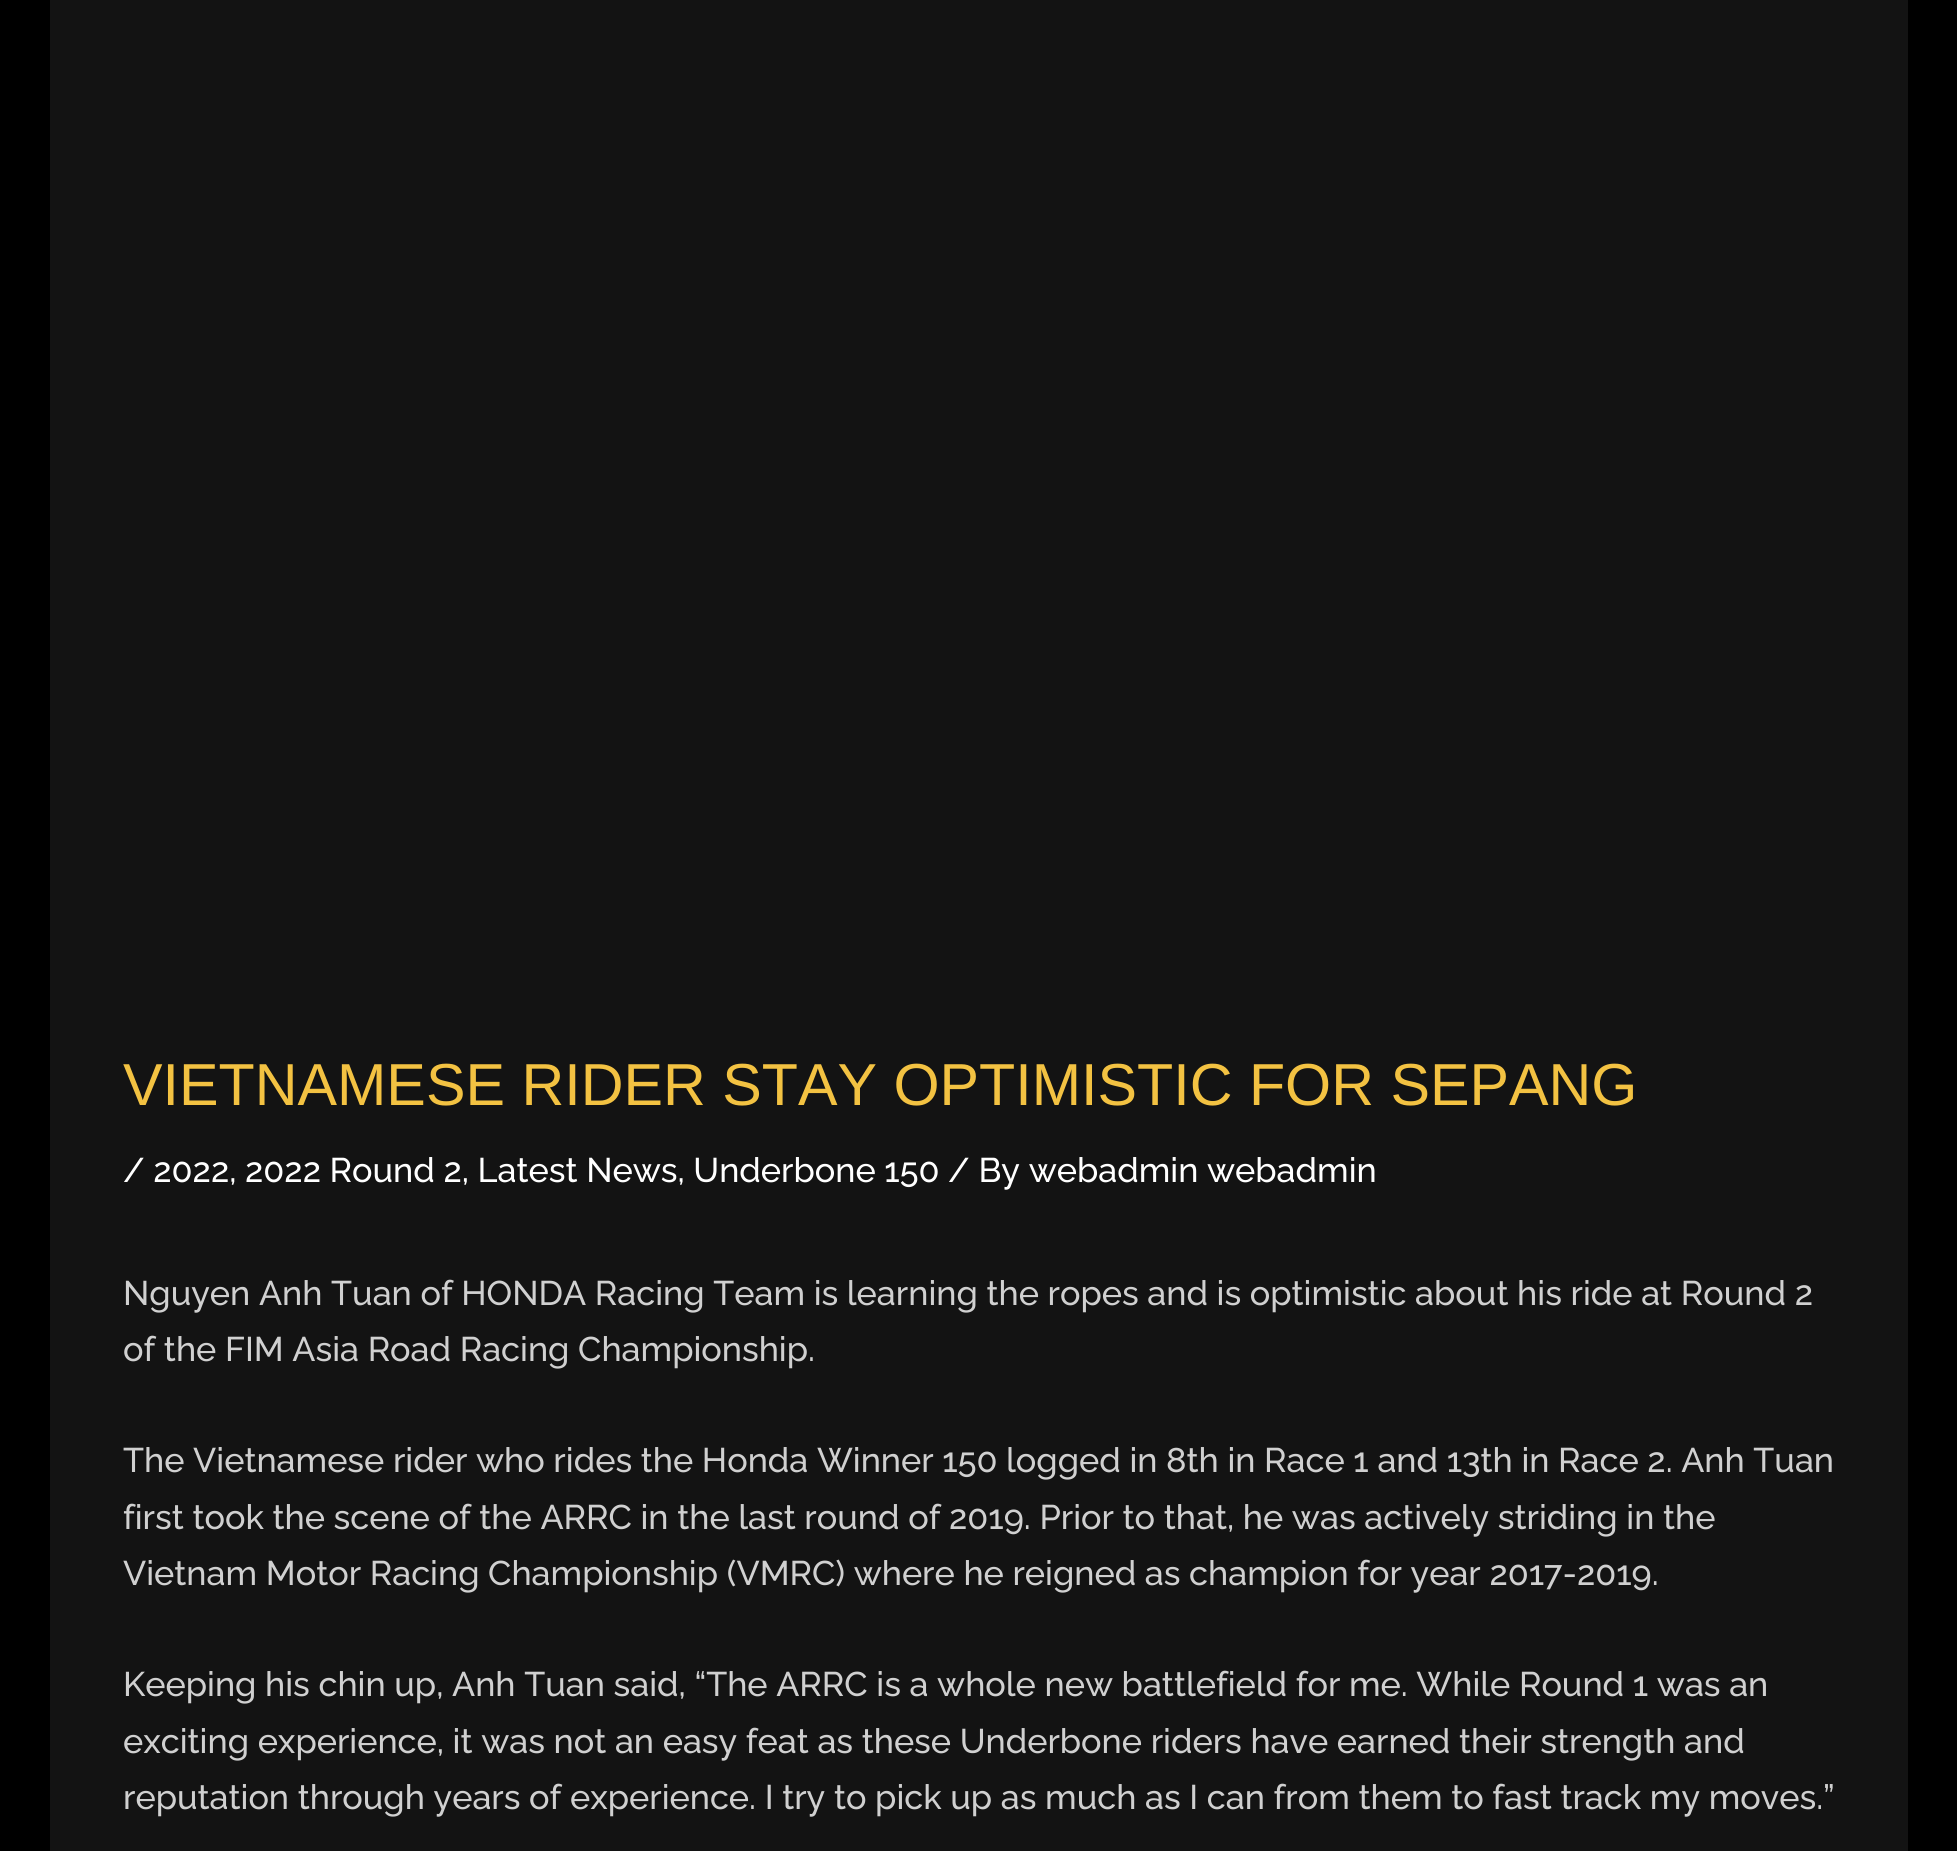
import math
import cairo

surface = cairo.ImageSurface(cairo.Format.RGB24, 1957, 1851)
ctx = cairo.Context(surface)
options = cairo.FontOptions()
options.set_hint_metrics(cairo.HintMetrics.OFF)
options.set_hint_style(cairo.HintStyle.NONE)
ctx.set_font_options(options)
ctx.set_miter_limit(4)


def ink(r, g, b):
    ctx.set_source_rgb(r / 255, g / 255, b / 255)


def write(x, y, s, family, size, color, bold=False, italic=False):
    ctx.select_font_face(family, cairo.FontSlant.ITALIC if italic else cairo.FontSlant.NORMAL, cairo.FontWeight.BOLD if bold else cairo.FontWeight.NORMAL)
    ctx.set_font_size(size)
    ink(*color)
    ctx.move_to(x, y)
    ctx.show_text(s)


def block(x, y, w, h, *color):
    ink(*color)
    ctx.rectangle(x, y, w, h)
    ctx.fill()


s1 = dict(family="Liberation Sans", size=59.25, color=(243, 194, 66))
s2 = dict(family="Raleway Thin", size=34.2, color=(255, 255, 255))
s3 = dict(family="Raleway Thin", size=34.2, color=(208, 208, 208))

ink(0, 0, 0)
ctx.paint()
block(50, 0, 1858, 1851, 19, 19, 19)
write(123, 1105, "VIETNAMESE RIDER STAY OPTIMISTIC FOR SEPANG", **s1)
write(123, 1182, "/ 2022, 2022 Round 2, Latest News, Underbone 150 / By webadmin webadmin", **s2)
write(123, 1305, "Nguyen Anh Tuan of HONDA Racing Team is learning the ropes and is optimistic about his ride at Round 2", **s3)
write(123, 1361, "of the FIM Asia Road Racing Championship.", **s3)
write(123, 1472, "The Vietnamese rider who rides the Honda Winner 150 logged in 8th in Race 1 and 13th in Race 2. Anh Tuan", **s3)
write(123, 1529, "first took the scene of the ARRC in the last round of 2019. Prior to that, he was actively striding in the", **s3)
write(123, 1585, "Vietnam Motor Racing Championship (VMRC) where he reigned as champion for year 2017-2019.", **s3)
write(123, 1696, "Keeping his chin up, Anh Tuan said, “The ARRC is a whole new battlefield for me. While Round 1 was an", **s3)
write(123, 1753, "exciting experience, it was not an easy feat as these Underbone riders have earned their strength and", **s3)
write(123, 1809, "reputation through years of experience. I try to pick up as much as I can from them to fast track my moves.”", **s3)
surface.write_to_png("screenshot.png")
